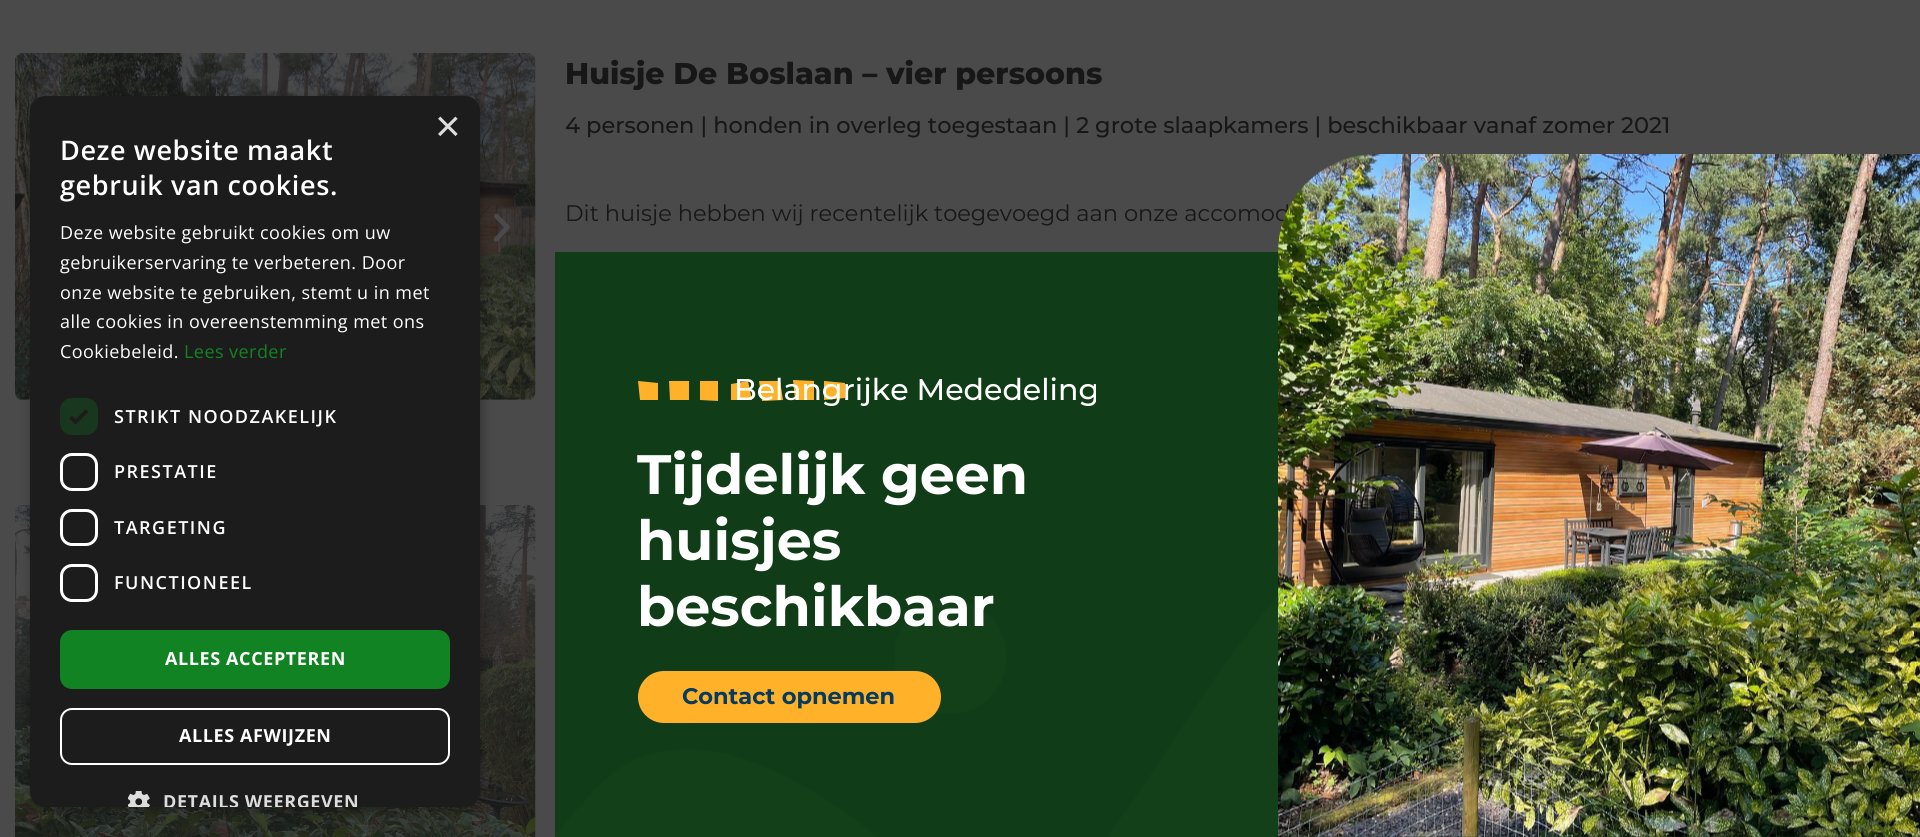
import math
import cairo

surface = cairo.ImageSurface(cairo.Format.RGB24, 1920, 837)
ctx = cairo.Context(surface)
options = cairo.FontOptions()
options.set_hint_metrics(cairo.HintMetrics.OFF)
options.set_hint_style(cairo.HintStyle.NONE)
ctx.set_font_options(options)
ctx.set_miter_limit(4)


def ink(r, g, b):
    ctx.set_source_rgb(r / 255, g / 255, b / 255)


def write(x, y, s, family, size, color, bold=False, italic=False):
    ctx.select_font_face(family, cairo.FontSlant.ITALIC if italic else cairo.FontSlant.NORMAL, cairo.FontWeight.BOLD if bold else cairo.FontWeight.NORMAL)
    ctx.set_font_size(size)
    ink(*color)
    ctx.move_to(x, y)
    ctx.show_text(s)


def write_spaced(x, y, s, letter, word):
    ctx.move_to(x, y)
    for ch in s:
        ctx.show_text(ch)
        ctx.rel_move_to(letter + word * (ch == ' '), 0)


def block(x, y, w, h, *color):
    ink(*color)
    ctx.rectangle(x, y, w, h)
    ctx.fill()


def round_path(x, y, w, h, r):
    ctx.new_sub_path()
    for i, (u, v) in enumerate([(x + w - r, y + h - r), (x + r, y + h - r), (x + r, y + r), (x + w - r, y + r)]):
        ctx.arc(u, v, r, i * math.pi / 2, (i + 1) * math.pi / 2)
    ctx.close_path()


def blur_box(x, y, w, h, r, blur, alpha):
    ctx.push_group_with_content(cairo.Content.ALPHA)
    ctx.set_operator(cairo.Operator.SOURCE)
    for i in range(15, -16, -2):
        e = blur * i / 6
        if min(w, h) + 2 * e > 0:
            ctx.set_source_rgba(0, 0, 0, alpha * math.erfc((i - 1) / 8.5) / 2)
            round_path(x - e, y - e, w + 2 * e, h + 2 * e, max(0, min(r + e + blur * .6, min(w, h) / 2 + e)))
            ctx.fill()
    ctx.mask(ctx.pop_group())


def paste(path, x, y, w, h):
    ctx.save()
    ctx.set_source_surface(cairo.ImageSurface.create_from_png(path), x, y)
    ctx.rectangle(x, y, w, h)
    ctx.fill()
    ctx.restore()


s1 = dict(family="Liberation Sans", size=44, color=(221, 221, 221))
s2 = dict(family="Montserrat ExtraBold", size=30, color=(23, 23, 23))
s3 = dict(family="Montserrat Medium", size=22.5, color=(23, 23, 23))
s4 = dict(family="Montserrat", size=22.5, color=(23, 23, 23))
s5 = dict(family="Montserrat Medium", size=30, color=(255, 255, 255))
s6 = dict(family="Montserrat", size=55.5, color=(255, 255, 255), bold=True)
s7 = dict(family="Montserrat", size=22.5, color=(6, 58, 95), bold=True)

ink(74, 74, 74)
ctx.paint()
paste("pic2.png", 15, 53, 521, 347)
paste("pic3.png", 493, 213, 17, 29)
paste("pic4.png", 15, 505, 521, 332)
ink(0, 0, 0)
blur_box(32, 99, 450, 711, 15, 6, 0.35)
ink(28, 28, 28)
round_path(30, 96, 450, 711, 15)
ctx.fill()
write(435, 141, "×", **s1)
ctx.select_font_face("Open Sans SemiBold")
ctx.set_font_size(27)
ink(255, 255, 255)
write_spaced(60, 160, "Deze website maakt", 0.6, 0)
write_spaced(60, 195, "gebruik van cookies.", 0.6, 0)
ctx.select_font_face("Open Sans")
ctx.set_font_size(18)
write_spaced(60, 239, "Deze website gebruikt cookies om uw", 0.45, 0)
write_spaced(60, 269, "gebruikerservaring te verbeteren. Door", 0.45, 0)
write_spaced(60, 299, "onze website te gebruiken, stemt u in met", 0.45, 0)
write_spaced(60, 328, "alle cookies in overeenstemming met ons", 0.45, 0)
write_spaced(60, 358, "Cookiebeleid.", 0.45, 0)
ink(18, 131, 34)
write_spaced(184, 358, "Lees verder", 0.45, 0)
ink(25, 55, 30)
round_path(60, 398, 38, 37, 12)
ctx.fill()
ctx.new_path()
ctx.move_to(70.5, 417)
ctx.line_to(75.5, 422)
ctx.line_to(87, 410.5)
ink(28, 28, 28)
ctx.set_line_width(3.9)
ctx.stroke()
ctx.select_font_face("Open Sans SemiBold")
ink(255, 255, 255)
write_spaced(114, 423, "STRIKT NOODZAKELIJK", 1.5, 0)
round_path(61.5, 454.5, 35, 35, 10.5)
ctx.set_line_width(3)
ctx.stroke()
write_spaced(114, 478, "PRESTATIE", 1.5, 0)
round_path(61.5, 510.5, 35, 34, 10.5)
ctx.stroke()
write_spaced(114, 534, "TARGETING", 1.5, 0)
round_path(61.5, 565.5, 35, 35, 10.5)
ctx.stroke()
write_spaced(114, 589, "FUNCTIONEEL", 1.5, 0)
ink(18, 131, 34)
round_path(60, 630, 390, 59, 12)
ctx.fill()
ctx.select_font_face("Open Sans", cairo.FontSlant.NORMAL, cairo.FontWeight.BOLD)
ink(255, 255, 255)
write_spaced(165, 665, "ALLES ACCEPTEREN", 0.6, 0)
round_path(61, 709, 388, 55, 11)
ctx.set_line_width(2)
ctx.stroke()
write_spaced(179, 742, "ALLES AFWIJZEN", 0.6, 0)
paste("pic1.png", 128, 791, 22, 16)
ctx.save()
round_path(30, 96, 450, 711, 15)
ctx.clip()
ink(221, 221, 221)
write_spaced(163, 808, "DETAILS WEERGEVEN", 0.6, 0)
ctx.restore()
write(565, 84, "Huisje De Boslaan – vier persoons", **s2)
write(565, 133, "4 personen | honden in overleg toegestaan | 2 grote slaapkamers | beschikbaar vanaf zomer 2021", **s3)
write(565, 221, "Dit huisje hebben wij recentelijk toegevoegd aan onze accomod", **s4)
block(555, 252, 1365, 585, 6, 53, 13)
paste("pic5.png", 555, 252, 1365, 585)
ink(255, 178, 41)
ctx.new_path()
ctx.move_to(718, 381)
ctx.line_to(718, 401)
ctx.line_to(700, 400)
ctx.line_to(700, 381)
ctx.close_path()
ctx.move_to(780, 381)
ctx.line_to(783, 400)
ctx.line_to(762, 401)
ctx.line_to(759, 381)
ctx.close_path()
ctx.move_to(638, 381)
ctx.line_to(658, 383)
ctx.line_to(658, 400)
ctx.line_to(640, 400)
ctx.close_path()
ctx.move_to(689, 381)
ctx.line_to(689, 400)
ctx.line_to(670, 400)
ctx.line_to(669, 381)
ctx.close_path()
ctx.move_to(748, 381)
ctx.line_to(752, 400)
ctx.line_to(731, 400)
ctx.line_to(731, 384)
ctx.close_path()
ctx.move_to(793, 380)
ctx.line_to(814, 381)
ctx.line_to(814, 400)
ctx.line_to(795, 400)
ctx.close_path()
ctx.move_to(824, 381)
ctx.line_to(845, 383)
ctx.line_to(845, 398)
ctx.line_to(824, 400)
ctx.close_path()
ctx.fill()
write(734, 400, "Belangrijke Mededeling", **s5)
write(637, 494, "Tijdelijk geen", **s6)
write(637, 560, "huisjes", **s6)
write(637, 626, "beschikbaar", **s6)
ink(255, 178, 41)
round_path(638, 671, 303, 52, 26)
ctx.fill()
write(682, 704, "Contact opnemen", **s7)
paste("pic6.png", 1278, 154, 642, 683)
surface.write_to_png("screenshot.png")
